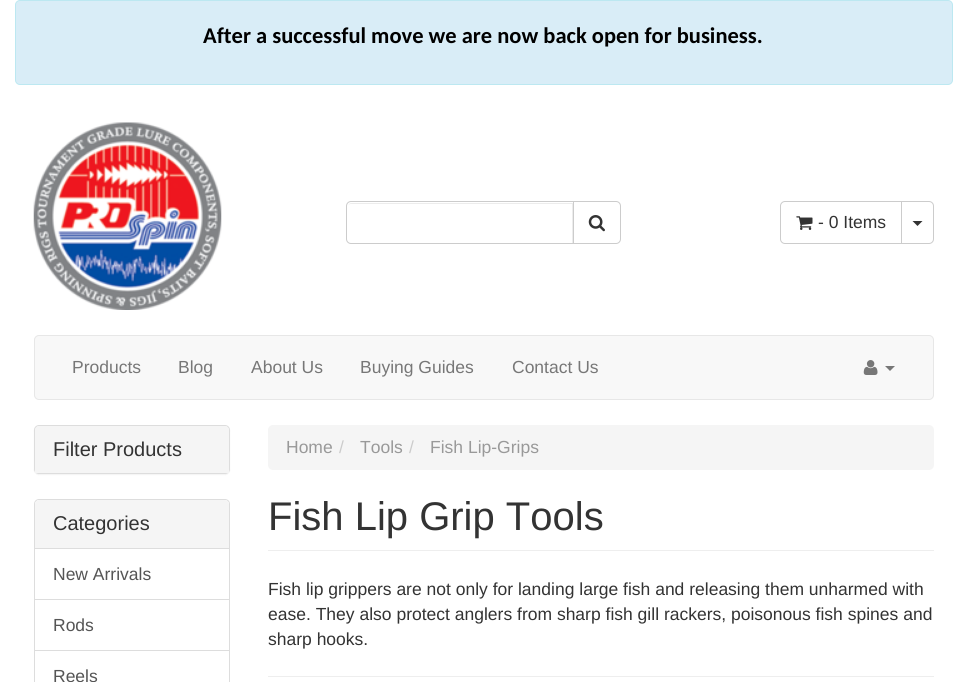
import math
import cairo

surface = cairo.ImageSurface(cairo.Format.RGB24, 966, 682)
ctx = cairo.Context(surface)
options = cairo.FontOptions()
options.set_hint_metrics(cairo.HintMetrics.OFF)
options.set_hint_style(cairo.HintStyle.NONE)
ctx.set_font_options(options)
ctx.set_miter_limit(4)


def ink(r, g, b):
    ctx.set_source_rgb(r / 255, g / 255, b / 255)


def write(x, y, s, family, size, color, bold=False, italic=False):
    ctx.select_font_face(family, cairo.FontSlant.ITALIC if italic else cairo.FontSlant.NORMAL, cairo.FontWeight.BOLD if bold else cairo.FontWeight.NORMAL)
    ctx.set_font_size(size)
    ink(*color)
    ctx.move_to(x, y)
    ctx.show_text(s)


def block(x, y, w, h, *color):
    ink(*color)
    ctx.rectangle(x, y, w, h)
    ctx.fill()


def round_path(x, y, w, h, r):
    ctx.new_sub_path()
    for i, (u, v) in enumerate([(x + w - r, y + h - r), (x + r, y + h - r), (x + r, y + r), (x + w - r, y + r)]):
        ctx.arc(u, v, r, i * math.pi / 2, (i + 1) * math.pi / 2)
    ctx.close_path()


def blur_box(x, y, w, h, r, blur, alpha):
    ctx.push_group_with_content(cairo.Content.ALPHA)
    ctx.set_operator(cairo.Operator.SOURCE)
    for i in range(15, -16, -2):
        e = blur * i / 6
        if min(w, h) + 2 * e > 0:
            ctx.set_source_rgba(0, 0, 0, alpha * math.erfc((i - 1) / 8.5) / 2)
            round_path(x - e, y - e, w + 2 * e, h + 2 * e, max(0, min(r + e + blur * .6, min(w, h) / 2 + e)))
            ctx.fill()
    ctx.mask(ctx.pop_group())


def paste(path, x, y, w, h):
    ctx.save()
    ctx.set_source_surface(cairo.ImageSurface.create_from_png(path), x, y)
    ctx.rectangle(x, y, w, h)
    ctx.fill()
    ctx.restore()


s1 = dict(family="Carlito", size=22.5, color=(0, 0, 0), bold=True)
s2 = dict(family="Liberation Sans", size=17.5, color=(51, 51, 51))
s3 = dict(family="Liberation Sans", size=17.5, color=(119, 119, 119))
s4 = dict(family="Liberation Sans", size=20, color=(51, 51, 51))
s5 = dict(family="Liberation Sans", size=17.5, color=(85, 85, 85))
s6 = dict(family="Liberation Sans", size=17.5, color=(153, 153, 153))
s7 = dict(family="Liberation Sans", size=17.5, color=(204, 204, 204))
s8 = dict(family="Liberation Sans", size=40, color=(51, 51, 51))

ink(255, 255, 255)
ctx.paint()
ink(217, 237, 247)
round_path(15.5, 0.5, 937, 84, 4.5)
ctx.fill_preserve()
ink(188, 232, 241)
ctx.set_line_width(1)
ctx.stroke()
write(203, 43, "After a successful move we are now back open for business.", **s1)
paste("pic1.png", 33, 122, 189, 188)
ink(236, 236, 236)
ctx.new_path()
ctx.move_to(351, 204)
ctx.line_to(572, 204)
ctx.line_to(572, 243)
ctx.line_to(573, 243)
ctx.line_to(573, 203)
ctx.line_to(352, 203)
ctx.curve_to(349, 203, 348, 205, 348, 208)
ctx.curve_to(348, 205, 349, 204, 351, 204)
ctx.close_path()
ctx.fill()
ctx.new_path()
ctx.move_to(351, 201.5)
ctx.line_to(573.5, 201.5)
ctx.line_to(573.5, 243.5)
ctx.line_to(351, 243.5)
ctx.curve_to(348.5, 243.5, 346.5, 241.5, 346.5, 239)
ctx.line_to(346.5, 206)
ctx.curve_to(346.5, 203.5, 348.5, 201.5, 351, 201.5)
ctx.close_path()
ink(204, 204, 204)
ctx.stroke()
ink(255, 255, 255)
ctx.new_path()
ctx.move_to(573.5, 201.5)
ctx.line_to(616, 201.5)
ctx.curve_to(618.5, 201.5, 620.5, 203.5, 620.5, 206)
ctx.line_to(620.5, 239)
ctx.curve_to(620.5, 241.5, 618.5, 243.5, 616, 243.5)
ctx.line_to(573.5, 243.5)
ctx.close_path()
ctx.fill_preserve()
ink(204, 204, 204)
ctx.stroke()
paste("pic2.png", 588, 215, 17, 17)
ctx.new_path()
ctx.move_to(785, 201.5)
ctx.line_to(902.5, 201.5)
ctx.line_to(902.5, 243.5)
ctx.line_to(785, 243.5)
ctx.curve_to(782.5, 243.5, 780.5, 241.5, 780.5, 239)
ctx.line_to(780.5, 206)
ctx.curve_to(780.5, 203.5, 782.5, 201.5, 785, 201.5)
ctx.close_path()
ctx.stroke()
paste("pic3.png", 796, 216, 17, 14)
write(818, 228, "- 0 Items", **s2)
ink(255, 255, 255)
ctx.new_path()
ctx.move_to(901.5, 201.5)
ctx.line_to(929, 201.5)
ctx.curve_to(931.5, 201.5, 933.5, 203.5, 933.5, 206)
ctx.line_to(933.5, 239)
ctx.curve_to(933.5, 241.5, 931.5, 243.5, 929, 243.5)
ctx.line_to(901.5, 243.5)
ctx.close_path()
ctx.fill_preserve()
ink(204, 204, 204)
ctx.stroke()
ink(51, 51, 51)
ctx.new_path()
ctx.move_to(912.5, 221)
ctx.line_to(922.5, 221)
ctx.line_to(917.5, 226)
ctx.close_path()
ctx.fill()
ink(248, 248, 248)
round_path(34.5, 335.5, 899, 64, 4.5)
ctx.fill_preserve()
ink(231, 231, 231)
ctx.stroke()
write(72, 373, "Products", **s3)
write(178, 373, "Blog", **s3)
write(251, 373, "About Us", **s3)
write(360, 373, "Buying Guides", **s3)
write(512, 373, "Contact Us", **s3)
paste("pic4.png", 863, 360, 15, 15)
ctx.new_path()
ctx.move_to(885, 366)
ctx.line_to(895, 366)
ctx.line_to(890, 371)
ctx.close_path()
ctx.fill()
ink(0, 0, 0)
blur_box(34, 426, 196, 49, 5, 0.5, 0.05)
round_path(34.5, 425.5, 195, 48, 4.5)
ink(221, 221, 221)
ctx.stroke()
ink(245, 245, 245)
ctx.new_path()
ctx.move_to(39, 426)
ctx.line_to(225, 426)
ctx.curve_to(227, 426, 229, 428, 229, 430)
ctx.line_to(229, 473)
ctx.line_to(35, 473)
ctx.line_to(35, 430)
ctx.curve_to(35, 428, 37, 426, 39, 426)
ctx.close_path()
ctx.fill()
write(53, 456, "Filter Products", **s4)
round_path(34.5, 499.5, 195, 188, 4.5)
ink(221, 221, 221)
ctx.stroke()
ink(245, 245, 245)
ctx.new_path()
ctx.move_to(39, 500)
ctx.line_to(225, 500)
ctx.curve_to(227, 500, 229, 502, 229, 504)
ctx.line_to(229, 549)
ctx.line_to(35, 549)
ctx.line_to(35, 504)
ctx.curve_to(35, 502, 37, 500, 39, 500)
ctx.close_path()
ctx.fill()
block(35, 548, 194, 1, 221, 221, 221)
write(53, 530, "Categories", **s4)
write(53, 580, "New Arrivals", **s5)
block(35, 599, 194, 1, 221, 221, 221)
block(35, 650, 194, 1, 221, 221, 221)
write(53, 631, "Rods", **s5)
write(53, 682, "Reels", **s5)
ink(245, 245, 245)
round_path(268, 425, 666, 45, 5)
ctx.fill()
write(286, 453, "Home", **s6)
write(339, 453, "/", **s7)
write(360, 453, "Tools", **s6)
write(409, 453, "/", **s7)
write(430, 453, "Fish Lip-Grips", **s6)
block(268, 550, 666, 1, 238, 238, 238)
write(268, 530, "Fish Lip Grip Tools", **s8)
write(268, 595, "Fish lip grippers are not only for landing large fish and releasing them unharmed with", **s2)
write(268, 620, "ease. They also protect anglers from sharp fish gill rackers, poisonous fish spines and", **s2)
write(268, 645, "sharp hooks.", **s2)
block(268, 676, 666, 1, 238, 238, 238)
surface.write_to_png("screenshot.png")
